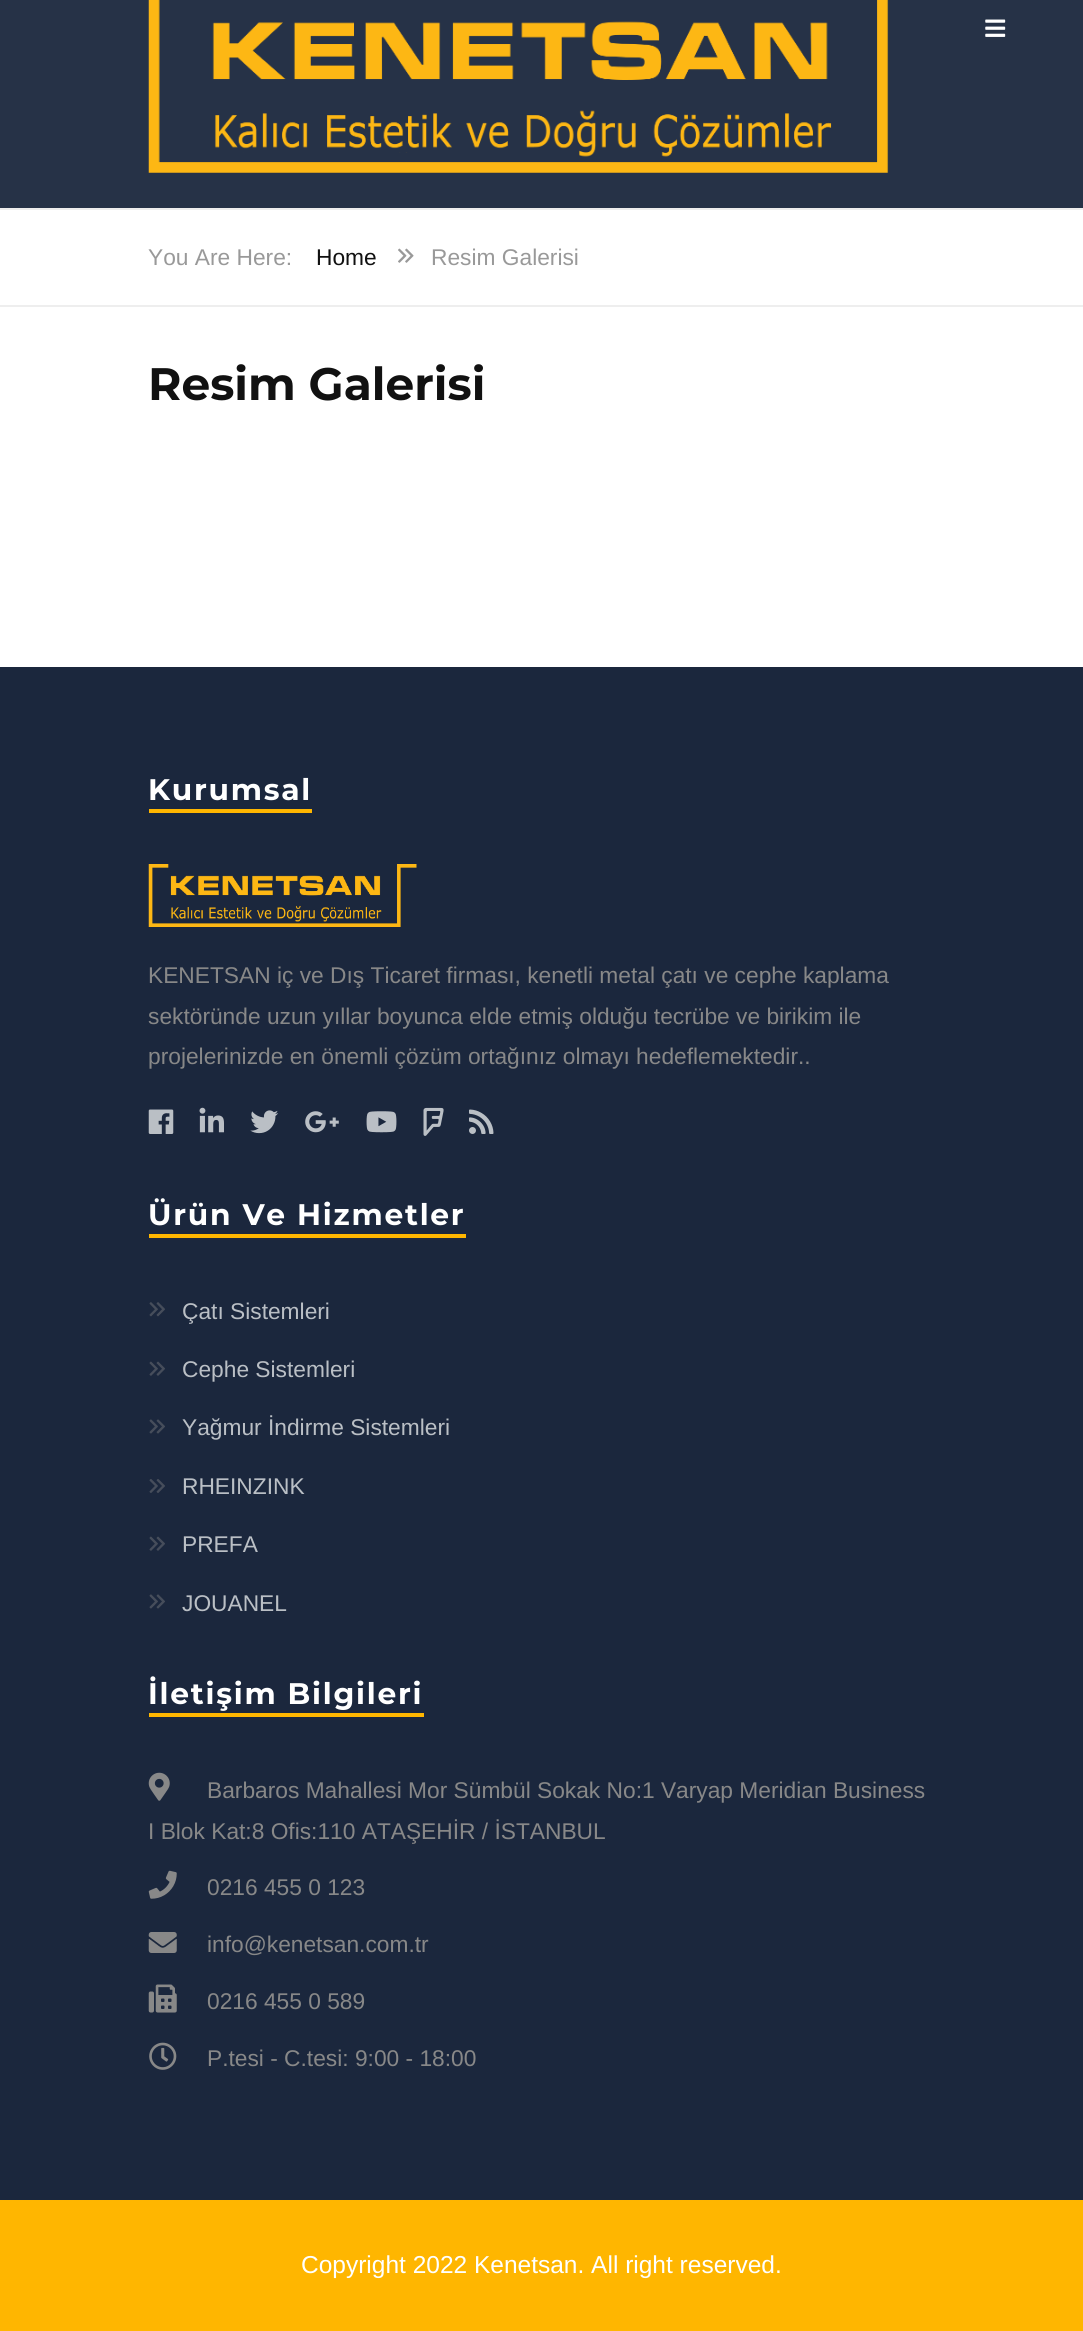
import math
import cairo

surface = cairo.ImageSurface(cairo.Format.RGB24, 1083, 2331)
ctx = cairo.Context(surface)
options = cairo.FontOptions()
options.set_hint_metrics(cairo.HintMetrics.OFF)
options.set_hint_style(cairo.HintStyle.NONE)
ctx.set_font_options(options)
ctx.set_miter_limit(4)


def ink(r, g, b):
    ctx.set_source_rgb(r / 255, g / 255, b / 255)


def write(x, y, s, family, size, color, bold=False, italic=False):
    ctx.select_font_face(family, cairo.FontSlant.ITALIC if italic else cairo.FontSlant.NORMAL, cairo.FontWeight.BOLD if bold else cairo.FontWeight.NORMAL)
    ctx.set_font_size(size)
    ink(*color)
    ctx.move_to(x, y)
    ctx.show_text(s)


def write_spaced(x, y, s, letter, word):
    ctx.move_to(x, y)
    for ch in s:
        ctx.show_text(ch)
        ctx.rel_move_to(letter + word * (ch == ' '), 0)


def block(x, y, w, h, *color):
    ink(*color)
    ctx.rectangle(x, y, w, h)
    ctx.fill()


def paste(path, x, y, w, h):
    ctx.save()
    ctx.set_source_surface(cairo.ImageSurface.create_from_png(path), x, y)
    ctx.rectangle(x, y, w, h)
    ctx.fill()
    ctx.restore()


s1 = dict(family="Liberation Sans", size=22.75, color=(153, 153, 153))
s2 = dict(family="Liberation Sans", size=22.75, color=(17, 17, 17))
s3 = dict(family="Montserrat", size=45.5, color=(17, 17, 17), bold=True)
s4 = dict(family="Liberation Sans", size=22.75, color=(136, 136, 136))
s5 = dict(family="Liberation Sans", size=22.75, color=(186, 191, 197))
s6 = dict(family="Liberation Sans", size=24.5, color=(255, 255, 255))

ink(255, 255, 255)
ctx.paint()
block(0, 0, 1083, 208, 38, 50, 71)
paste("pic1.png", 148, 0, 741, 173)
paste("pic2.png", 985, 19, 21, 18)
block(0, 208, 1083, 2, 238, 238, 238)
block(0, 305, 1083, 2, 238, 238, 238)
write(148, 265, "You Are Here:", **s1)
write(316, 265, "Home", **s2)
paste("pic3.png", 398, 248, 16, 15)
write(431, 265, "Resim Galerisi", **s1)
write(148, 400, "Resim Galerisi", **s3)
block(0, 667, 1083, 1533, 27, 39, 61)
ctx.set_font_size(29.75)
ink(255, 255, 255)
write_spaced(148, 800, "Kurumsal", 1.75, 0)
block(149, 809, 163, 4, 255, 182, 0)
paste("pic4.png", 148, 864, 269, 63)
write(148, 983, "KENETSAN iç ve Dış Ticaret firması, kenetli metal çatı ve cephe kaplama", **s4)
write(148, 1024, "sektöründe uzun yıllar boyunca elde etmiş olduğu tecrübe ve birikim ile", **s4)
write(148, 1064, "projelerinizde en önemli çözüm ortağınız olmayı hedeflemektedir..", **s4)
paste("pic5.png", 148, 1109, 26, 25)
paste("pic6.png", 199, 1107, 25, 26)
paste("pic7.png", 250, 1110, 29, 24)
paste("pic8.png", 305, 1111, 34, 22)
paste("pic9.png", 366, 1111, 31, 22)
paste("pic10.png", 423, 1107, 21, 29)
paste("pic11.png", 469, 1109, 25, 25)
ctx.select_font_face("Montserrat", cairo.FontSlant.NORMAL, cairo.FontWeight.BOLD)
ctx.set_font_size(29.75)
ink(255, 255, 255)
write_spaced(148, 1225, "Ürün Ve Hizmetler", 1.75, 0)
block(149, 1234, 317, 4, 255, 182, 0)
paste("pic12.png", 149, 1302, 16, 15)
write(182, 1319, "Çatı Sistemleri", **s5)
paste("pic13.png", 149, 1361, 16, 15)
write(182, 1377, "Cephe Sistemleri", **s5)
paste("pic14.png", 149, 1419, 16, 15)
write(182, 1435, "Yağmur İndirme Sistemleri", **s5)
paste("pic15.png", 149, 1479, 16, 14)
write(182, 1494, "RHEINZINK", **s5)
paste("pic13.png", 149, 1536, 16, 15)
write(182, 1552, "PREFA", **s5)
paste("pic14.png", 149, 1594, 16, 15)
write(182, 1611, "JOUANEL", **s5)
ctx.select_font_face("Montserrat", cairo.FontSlant.NORMAL, cairo.FontWeight.BOLD)
ctx.set_font_size(29.75)
ink(255, 255, 255)
write_spaced(148, 1704, "İletişim Bilgileri", 1.75, 0)
block(149, 1713, 275, 4, 255, 182, 0)
paste("pic16.png", 148, 1772, 22, 29)
write(207, 1798, "Barbaros Mahallesi Mor Sümbül Sokak No:1 Varyap Meridian Business", **s4)
write(148, 1839, "I Blok Kat:8 Ofis:110 ATAŞEHİR / İSTANBUL", **s4)
paste("pic17.png", 148, 1870, 29, 29)
write(207, 1895, "0216 455 0 123", **s4)
paste("pic18.png", 148, 1932, 29, 21)
write(207, 1952, "info@kenetsan.com.tr", **s4)
paste("pic19.png", 148, 1984, 29, 29)
write(207, 2009, "0216 455 0 589", **s4)
paste("pic20.png", 149, 2042, 28, 28)
write(207, 2066, "P.tesi - C.tesi: 9:00 - 18:00", **s4)
block(0, 2200, 1083, 131, 255, 182, 0)
write(301, 2273, "Copyright 2022 Kenetsan. All right reserved.", **s6)
surface.write_to_png("screenshot.png")
